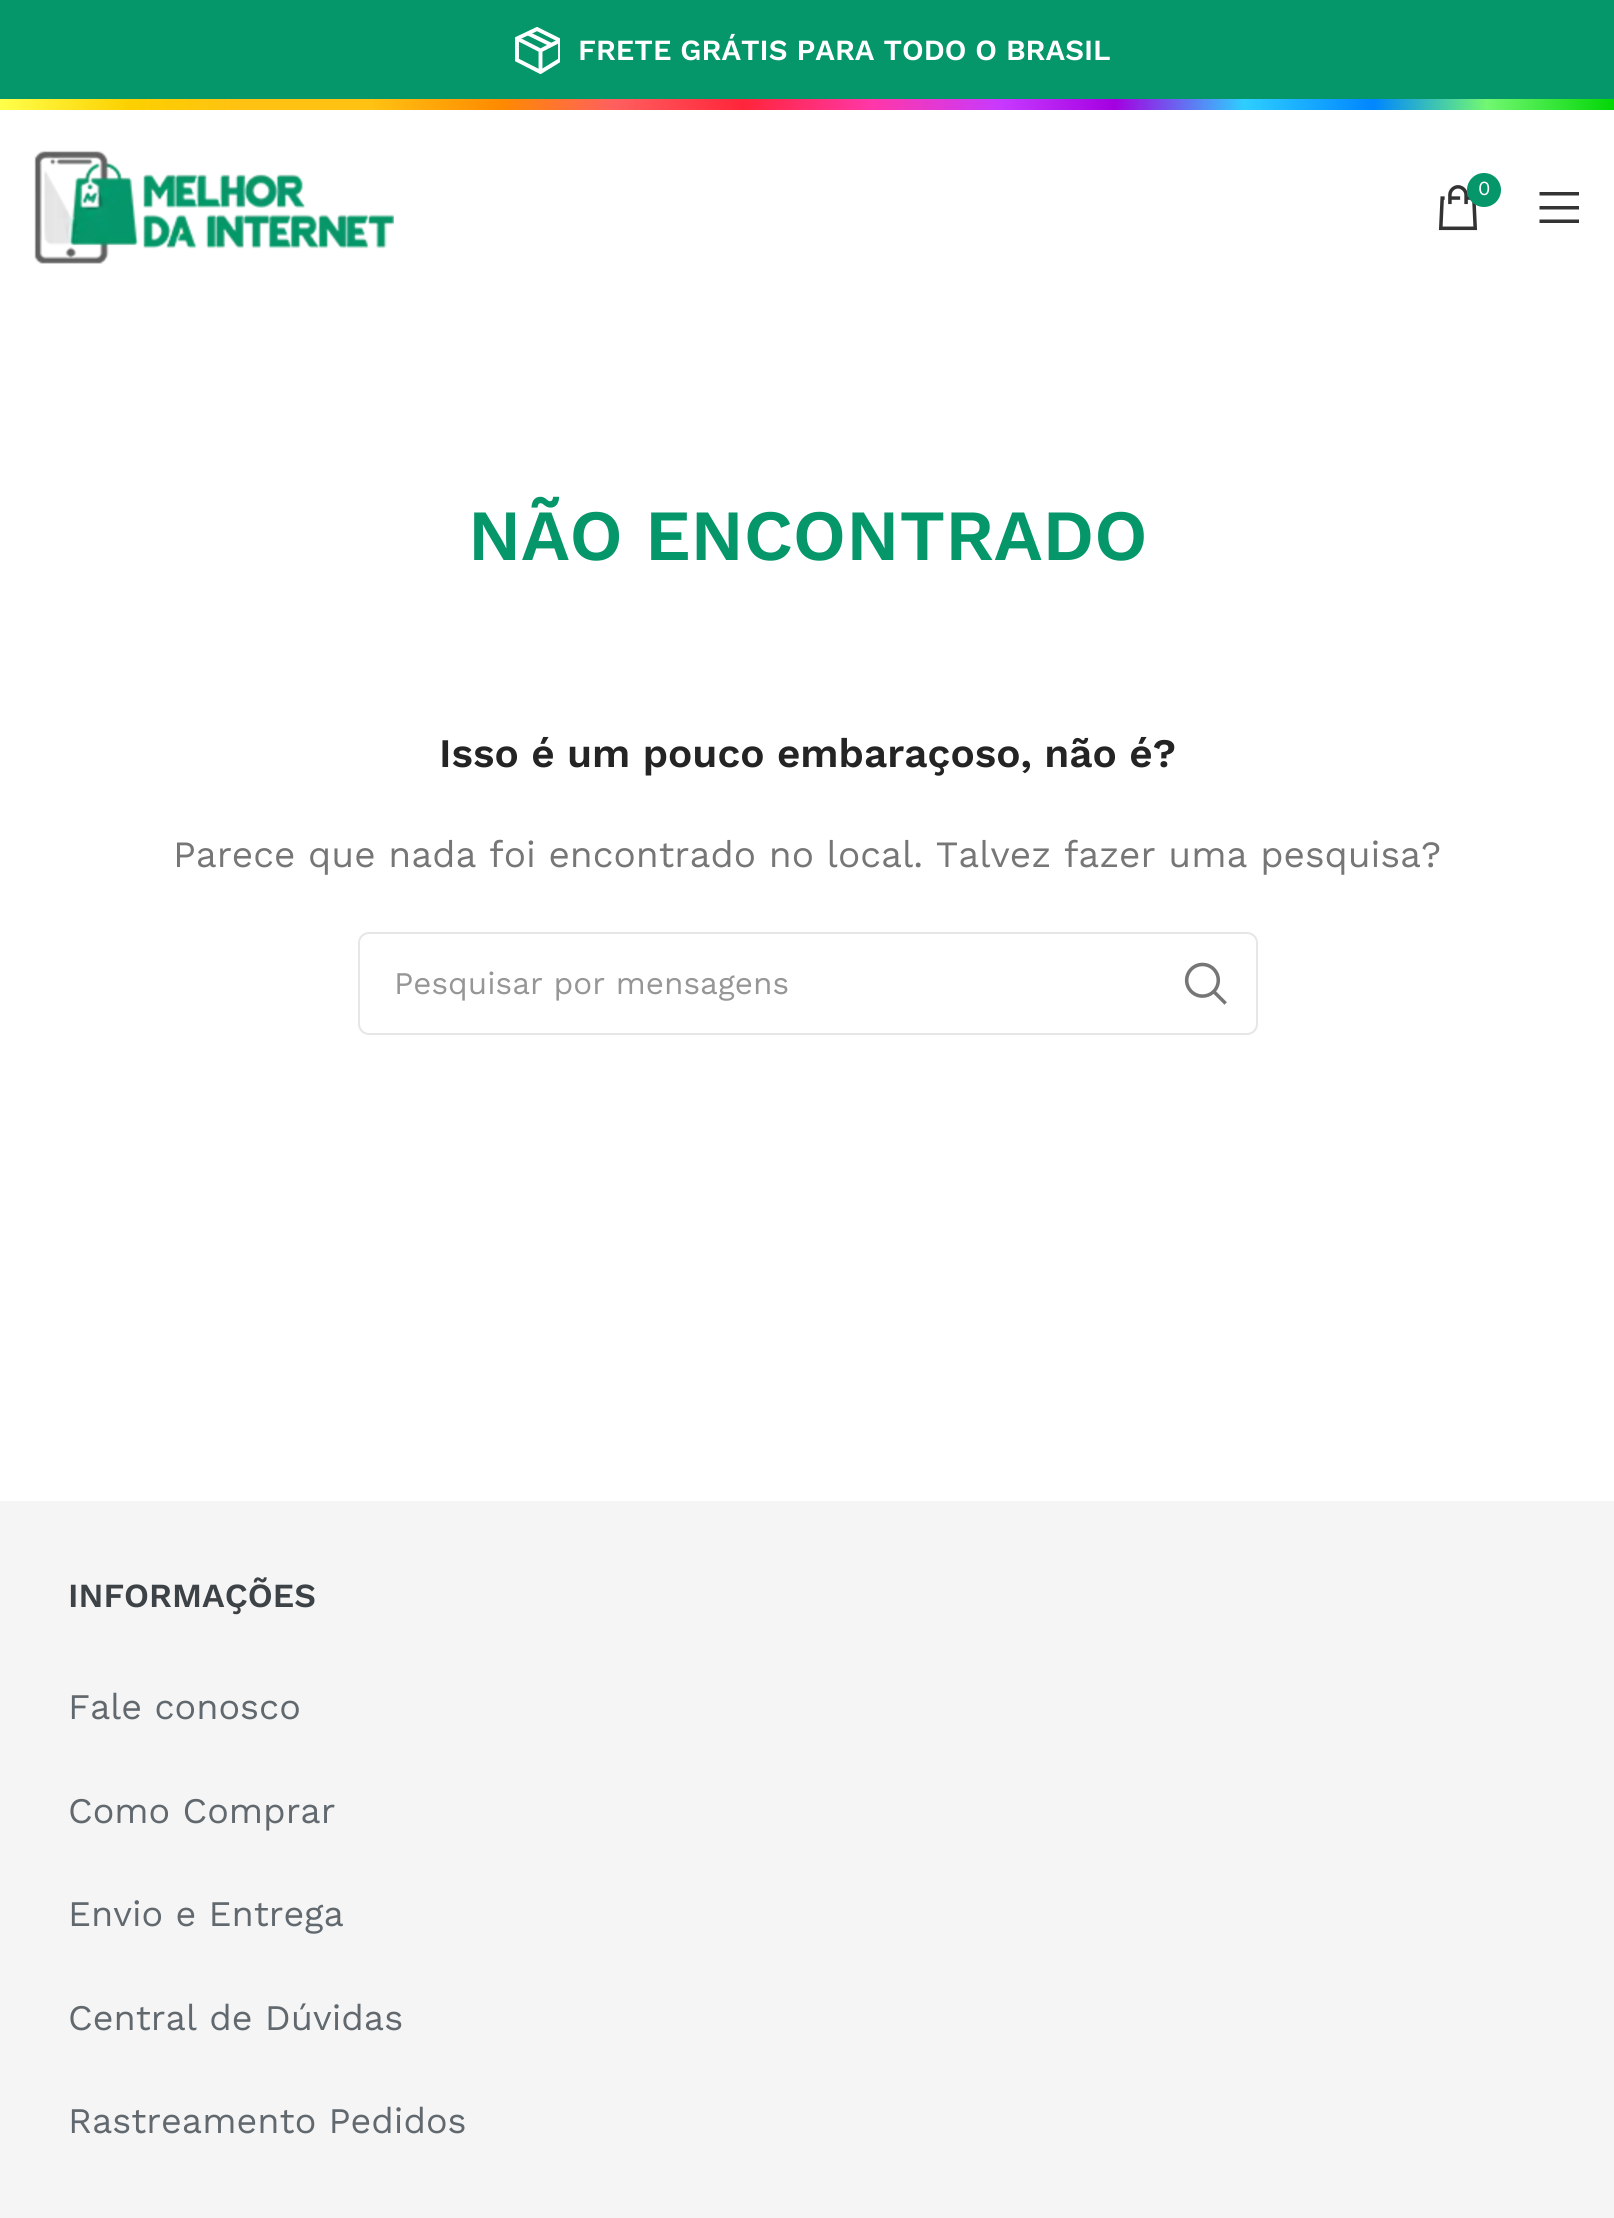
import math
import cairo

surface = cairo.ImageSurface(cairo.Format.RGB24, 1614, 2218)
ctx = cairo.Context(surface)
options = cairo.FontOptions()
options.set_hint_metrics(cairo.HintMetrics.OFF)
options.set_hint_style(cairo.HintStyle.NONE)
ctx.set_font_options(options)
ctx.set_miter_limit(4)


def ink(r, g, b):
    ctx.set_source_rgb(r / 255, g / 255, b / 255)


def write(x, y, s, family, size, color, bold=False, italic=False):
    ctx.select_font_face(family, cairo.FontSlant.ITALIC if italic else cairo.FontSlant.NORMAL, cairo.FontWeight.BOLD if bold else cairo.FontWeight.NORMAL)
    ctx.set_font_size(size)
    ink(*color)
    ctx.move_to(x, y)
    ctx.show_text(s)


def block(x, y, w, h, *color):
    ink(*color)
    ctx.rectangle(x, y, w, h)
    ctx.fill()


def round_path(x, y, w, h, r):
    ctx.new_sub_path()
    for i, (u, v) in enumerate([(x + w - r, y + h - r), (x + r, y + h - r), (x + r, y + r), (x + w - r, y + r)]):
        ctx.arc(u, v, r, i * math.pi / 2, (i + 1) * math.pi / 2)
    ctx.close_path()


def paste(path, x, y, w, h):
    ctx.save()
    ctx.set_source_surface(cairo.ImageSurface.create_from_png(path), x, y)
    ctx.rectangle(x, y, w, h)
    ctx.fill()
    ctx.restore()


s1 = dict(family="Work Sans SemiBold", size=29.25, color=(255, 255, 255))
s2 = dict(family="Work Sans", size=20, color=(255, 255, 255))
s3 = dict(family="Work Sans SemiBold", size=72, color=(5, 150, 105))
s4 = dict(family="Work Sans SemiBold", size=40.5, color=(36, 36, 36))
s5 = dict(family="Work Sans", size=37.1, color=(118, 118, 118))
s6 = dict(family="Work Sans", size=31.5, color=(150, 150, 150))
s7 = dict(family="Work Sans SemiBold", size=33.75, color=(61, 66, 70))
s8 = dict(family="Work Sans", size=36, color=(97, 105, 111))

ink(255, 255, 255)
ctx.paint()
block(0, 0, 1614, 99, 5, 150, 105)
ctx.new_path()
ctx.move_to(528, 33.5)
ctx.line_to(551.5, 45)
ink(255, 255, 255)
ctx.set_line_width(3.9)
ctx.stroke()
ctx.save()
ctx.rectangle(515, 27, 45, 47)
ctx.clip()
ctx.new_path()
ctx.move_to(560, 40.5)
ctx.line_to(540.5, 50.5)
ctx.line_to(517, 38.5)
ctx.move_to(540.5, 50.5)
ctx.line_to(540.5, 72)
ctx.stroke()
ctx.new_path()
ctx.move_to(560, 40.5)
ctx.line_to(560, 60)
ctx.line_to(540.5, 72)
ctx.line_to(517, 60)
ctx.line_to(517, 38.5)
ctx.line_to(537, 29)
ctx.close_path()
ctx.set_line_cap(cairo.LineCap.SQUARE)
ctx.stroke()
ctx.restore()
write(578, 60, "FRETE GRÁTIS PARA TODO O BRASIL", **s1)
gradient = cairo.LinearGradient(0, 105, 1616, 105)
gradient.add_color_stop_rgba(0, 1, 1, 0.29, 1)
gradient.add_color_stop_rgba(0.08, 0.988, 0.816, 0, 1)
gradient.add_color_stop_rgba(0.15, 1, 0.757, 0.071, 1)
gradient.add_color_stop_rgba(0.23, 1, 0.757, 0.071, 1)
gradient.add_color_stop_rgba(0.31, 1, 0.541, 0, 1)
gradient.add_color_stop_rgba(0.38, 1, 0.373, 0.373, 1)
gradient.add_color_stop_rgba(0.46, 1, 0.145, 0.227, 1)
gradient.add_color_stop_rgba(0.54, 1, 0.216, 0.659, 1)
gradient.add_color_stop_rgba(0.62, 0.78, 0.224, 1, 1)
gradient.add_color_stop_rgba(0.69, 0.643, 0, 0.882, 1)
gradient.add_color_stop_rgba(0.77, 0.18, 0.808, 1, 1)
gradient.add_color_stop_rgba(0.85, 0, 0.525, 1, 1)
gradient.add_color_stop_rgba(0.92, 0.447, 0.969, 0.447, 1)
gradient.add_color_stop_rgba(1, 0, 0.839, 0.016, 1)
ctx.set_source(gradient)
ctx.rectangle(0, 99, 1614, 11)
ctx.fill()
paste("pic1.png", 34, 150, 360, 114)
paste("pic2.png", 1438, 185, 40, 46)
ink(5, 150, 105)
ctx.arc(1484, 190, 17, 0, 2 * math.pi)
ctx.fill()
write(1478, 195, "0", **s2)
ink(51, 51, 51)
ctx.new_path()
ctx.move_to(1539.5, 195.5)
ctx.line_to(1579, 195.5)
ctx.line_to(1579, 192)
ctx.line_to(1539.5, 192)
ctx.close_path()
ctx.move_to(1539.5, 209.5)
ctx.line_to(1579, 209.5)
ctx.line_to(1579, 206)
ctx.line_to(1539.5, 206)
ctx.close_path()
ctx.move_to(1539.5, 223)
ctx.line_to(1579, 223)
ctx.line_to(1579, 219.5)
ctx.line_to(1539.5, 219.5)
ctx.close_path()
ctx.fill()
write(468, 560, "NÃO ENCONTRADO", **s3)
write(439, 767, "Isso é um pouco embaraçoso, não é?", **s4)
write(173, 867, "Parece que nada foi encontrado no local. Talvez fazer uma pesquisa?", **s5)
round_path(359, 933, 898, 101, 10)
ink(230, 230, 230)
ctx.set_line_width(2)
ctx.stroke()
write(394, 994, "Pesquisar por mensagens", **s6)
paste("pic3.png", 1184, 962, 43, 43)
block(0, 1501, 1614, 717, 245, 245, 245)
write(68, 1607, "INFORMAÇÕES", **s7)
write(68, 1719, "Fale conosco", **s8)
write(68, 1823, "Como Comprar", **s8)
write(68, 1926, "Envio e Entrega", **s8)
write(68, 2030, "Central de Dúvidas", **s8)
write(68, 2133, "Rastreamento Pedidos", **s8)
surface.write_to_png("screenshot.png")
